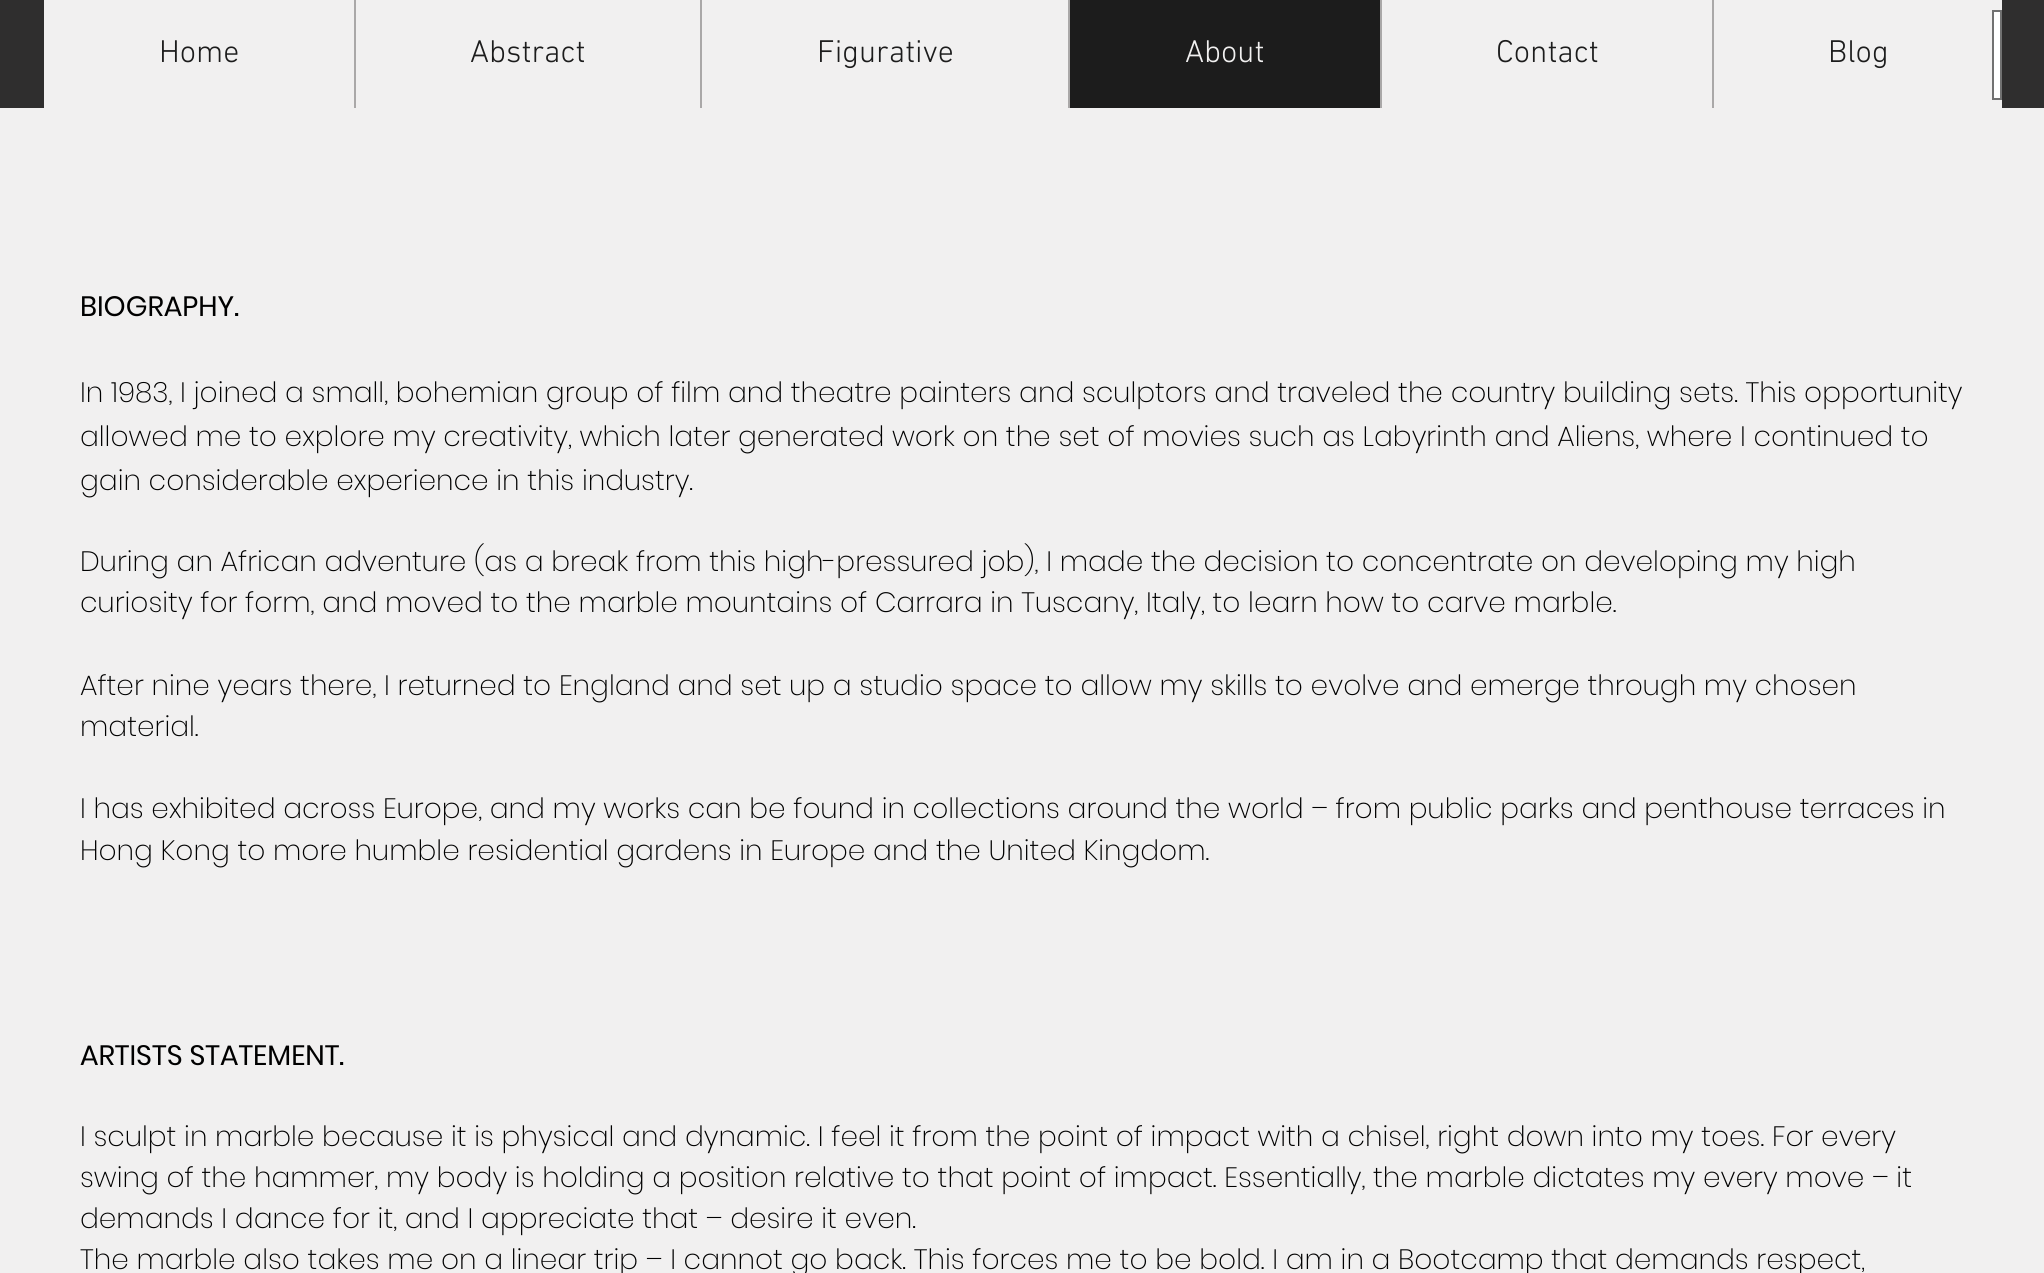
import math
import cairo

surface = cairo.ImageSurface(cairo.Format.RGB24, 2044, 1273)
ctx = cairo.Context(surface)
options = cairo.FontOptions()
options.set_hint_metrics(cairo.HintMetrics.OFF)
options.set_hint_style(cairo.HintStyle.NONE)
ctx.set_font_options(options)
ctx.set_miter_limit(4)


def ink(r, g, b):
    ctx.set_source_rgb(r / 255, g / 255, b / 255)


def write(x, y, s, family, size, color, bold=False, italic=False):
    ctx.select_font_face(family, cairo.FontSlant.ITALIC if italic else cairo.FontSlant.NORMAL, cairo.FontWeight.BOLD if bold else cairo.FontWeight.NORMAL)
    ctx.set_font_size(size)
    ink(*color)
    ctx.move_to(x, y)
    ctx.show_text(s)


def block(x, y, w, h, *color):
    ink(*color)
    ctx.rectangle(x, y, w, h)
    ctx.fill()


s1 = dict(family="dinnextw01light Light", size=32, color=(28, 28, 28))
s2 = dict(family="dinnextw01light Light", size=32, color=(241, 240, 240))
s3 = dict(family="Poppins", size=28, color=(0, 0, 0))
s4 = dict(family="Poppins ExtraLight", size=28, color=(0, 0, 0))

ink(241, 240, 240)
ctx.paint()
block(0, 0, 2044, 108, 47, 46, 46)
block(44, 0, 1958, 108, 241, 240, 240)
write(159, 62, "Home", **s1)
block(354, 0, 2, 108, 170, 168, 168)
write(470, 62, "Abstract", **s1)
block(700, 0, 2, 108, 170, 168, 168)
write(817, 62, "Figurative", **s1)
block(1070, 0, 310, 108, 28, 28, 28)
block(1068, 0, 2, 108, 170, 168, 168)
write(1185, 62, "About", **s2)
block(1380, 0, 2, 108, 170, 168, 168)
write(1496, 62, "Contact", **s1)
block(1712, 0, 2, 108, 170, 168, 168)
write(1828, 62, "Blog", **s1)
ctx.rectangle(1993, 11, 8, 88)
ink(113, 113, 113)
ctx.stroke()
block(1994, 12, 6, 86, 255, 255, 255)
write(80, 316, "BIOGRAPHY.", **s3)
write(80, 402, "In 1983, I joined a small, bohemian group of film and theatre painters and sculptors and traveled the country building sets. This opportunity", **s4)
write(80, 446, "allowed me to explore my creativity, which later generated work on the set of movies such as Labyrinth and Aliens, where I continued to", **s4)
write(80, 490, "gain considerable experience in this industry.", **s4)
write(80, 571, "During an African adventure (as a break from this high-pressured job), I made the decision to concentrate on developing my high", **s4)
write(80, 612, "curiosity for form, and moved to the marble mountains of Carrara in Tuscany, Italy, to learn how to carve marble.", **s4)
write(80, 695, "After nine years there, I returned to England and set up a studio space to allow my skills to evolve and emerge through my chosen", **s4)
write(80, 736, "material.", **s4)
write(80, 818, "I has exhibited across Europe, and my works can be found in collections around the world – from public parks and penthouse terraces in", **s4)
write(80, 860, "Hong Kong to more humble residential gardens in Europe and the United Kingdom.", **s4)
write(80, 1065, "ARTISTS STATEMENT.", **s3)
write(80, 1146, "I sculpt in marble because it is physical and dynamic. I feel it from the point of impact with a chisel, right down into my toes. For every", **s4)
write(80, 1187, "swing of the hammer, my body is holding a position relative to that point of impact. Essentially, the marble dictates my every move – it", **s4)
write(80, 1228, "demands I dance for it, and I appreciate that – desire it even.", **s4)
write(80, 1269, "The marble also takes me on a linear trip – I cannot go back. This forces me to be bold. I am in a Bootcamp that demands respect,", **s4)
surface.write_to_png("screenshot.png")
